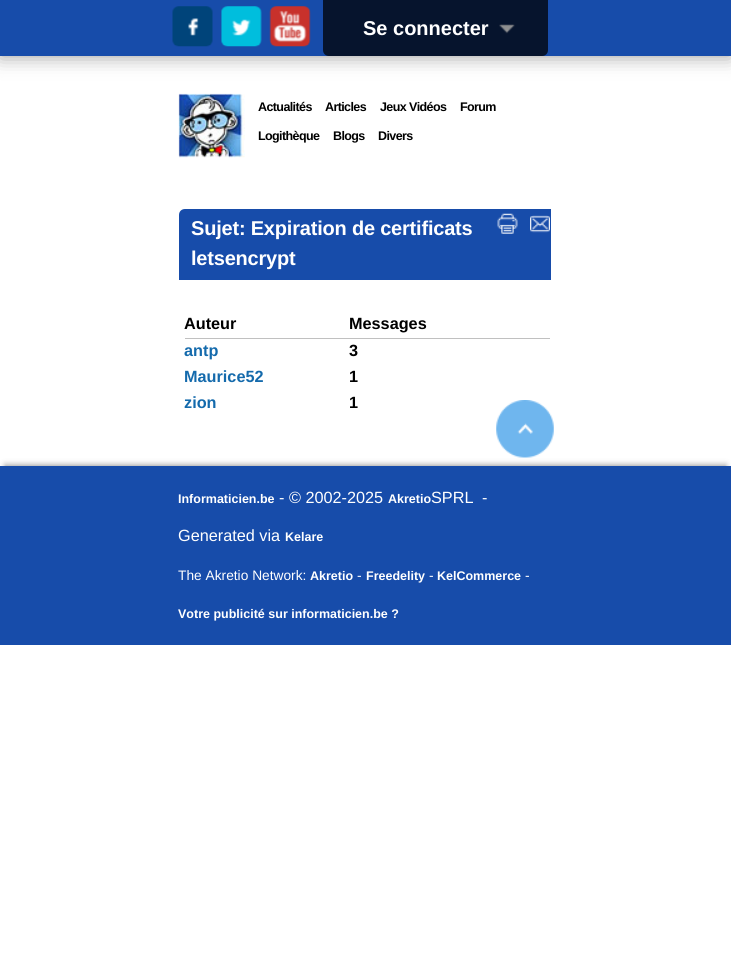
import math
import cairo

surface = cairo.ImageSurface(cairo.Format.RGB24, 731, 966)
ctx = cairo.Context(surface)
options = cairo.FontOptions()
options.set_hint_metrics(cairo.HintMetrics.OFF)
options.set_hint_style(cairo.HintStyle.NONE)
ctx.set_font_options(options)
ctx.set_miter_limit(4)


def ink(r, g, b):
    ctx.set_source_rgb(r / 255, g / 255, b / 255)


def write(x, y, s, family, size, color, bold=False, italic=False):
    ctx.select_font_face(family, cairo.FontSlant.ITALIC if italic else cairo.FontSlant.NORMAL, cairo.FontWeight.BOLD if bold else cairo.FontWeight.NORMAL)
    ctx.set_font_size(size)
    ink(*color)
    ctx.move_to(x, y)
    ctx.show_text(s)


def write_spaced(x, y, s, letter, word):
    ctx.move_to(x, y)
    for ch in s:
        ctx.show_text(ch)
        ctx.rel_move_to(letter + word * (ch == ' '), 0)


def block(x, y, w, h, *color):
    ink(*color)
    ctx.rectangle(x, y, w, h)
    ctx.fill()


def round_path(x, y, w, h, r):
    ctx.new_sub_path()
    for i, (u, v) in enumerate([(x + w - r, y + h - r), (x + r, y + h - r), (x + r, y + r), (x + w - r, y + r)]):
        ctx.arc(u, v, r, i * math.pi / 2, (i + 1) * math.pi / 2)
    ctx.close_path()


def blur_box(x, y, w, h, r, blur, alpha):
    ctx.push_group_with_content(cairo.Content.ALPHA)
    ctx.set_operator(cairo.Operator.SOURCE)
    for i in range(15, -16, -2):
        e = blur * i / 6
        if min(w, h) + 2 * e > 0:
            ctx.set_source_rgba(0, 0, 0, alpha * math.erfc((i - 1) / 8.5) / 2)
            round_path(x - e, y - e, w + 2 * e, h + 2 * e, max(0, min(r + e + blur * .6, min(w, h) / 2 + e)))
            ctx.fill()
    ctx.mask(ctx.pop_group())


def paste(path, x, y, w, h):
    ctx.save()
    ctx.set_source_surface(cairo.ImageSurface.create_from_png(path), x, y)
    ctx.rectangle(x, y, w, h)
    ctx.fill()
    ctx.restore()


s1 = dict(family="Liberation Sans", size=20, color=(255, 255, 255), bold=True)
s2 = dict(family="Liberation Sans", size=16.25, color=(0, 0, 0), bold=True)
s3 = dict(family="Liberation Sans", size=16.25, color=(20, 106, 172), bold=True)
s4 = dict(family="Liberation Sans", size=12.5, color=(255, 255, 255), bold=True)
s5 = dict(family="Liberation Sans", size=16.25, color=(255, 255, 255))
s6 = dict(family="Liberation Sans", size=13.75, color=(255, 255, 255))

ink(255, 255, 255)
ctx.paint()
ink(0, 0, 0)
blur_box(0, 0, 731, 56, 0, 10, 0.4)
block(0, 0, 731, 56, 23, 76, 170)
paste("pic1.png", 172, 6, 41, 41)
paste("pic2.png", 221, 6, 41, 41)
paste("pic3.png", 269, 6, 42, 41)
ink(6, 20, 45)
ctx.new_path()
ctx.move_to(323, 0)
ctx.line_to(548, 0)
ctx.line_to(548, 50)
ctx.curve_to(548, 53.5, 545.5, 56, 542, 56)
ctx.line_to(329, 56)
ctx.curve_to(325.5, 56, 323, 53.5, 323, 50)
ctx.close_path()
ctx.fill()
write(363, 35, "Se connecter", **s1)
paste("pic4.png", 499, 24, 16, 10)
paste("pic5.png", 178, 93, 67, 65)
ctx.set_font_size(12.5)
ink(0, 0, 0)
write_spaced(258, 111, "Actualités", -0.6, 0)
write_spaced(325, 111, "Articles", -0.6, 0)
write_spaced(380, 111, "Jeux Vidéos", -0.6, 0)
write_spaced(460, 111, "Forum", -0.6, 0)
write_spaced(258, 140, "Logithèque", -0.6, 0)
write_spaced(333, 140, "Blogs", -0.6, 0)
write_spaced(378, 140, "Divers", -0.6, 0)
ink(23, 76, 170)
ctx.new_path()
ctx.move_to(185, 209)
ctx.line_to(551, 209)
ctx.line_to(551, 280)
ctx.line_to(179, 280)
ctx.line_to(179, 215)
ctx.curve_to(179, 211.5, 181.5, 209, 185, 209)
ctx.close_path()
ctx.fill()
ctx.set_font_size(20)
ink(255, 255, 255)
write_spaced(191, 235, "Sujet: Expiration de certificats", -0.2, 0)
paste("pic6.png", 497, 213, 21, 21)
paste("pic7.png", 530, 215, 20, 18)
write_spaced(191, 265, "letsencrypt", -0.2, 0)
block(185, 338, 365, 1, 192, 192, 192)
write(184, 329, "Auteur", **s2)
write(349, 329, "Messages", **s2)
write(184, 356, "antp", **s3)
write(349, 356, "3", **s2)
write(184, 382, "Maurice52", **s3)
write(349, 382, "1", **s2)
write(184, 408, "zion", **s3)
write(349, 408, "1", **s2)
ink(0, 0, 0)
blur_box(5, 465, 721, 169, 0, 3, 0.4)
block(0, 466, 731, 179, 23, 76, 170)
paste("pic8.png", 496, 400, 58, 58)
write(178, 503, "Informaticien.be", **s4)
write(279, 503, "- © 2002-2025", **s5)
write(388, 503, "Akretio", **s4)
write(431, 503, "SPRL", **s5)
write(482, 503, "-", **s5)
write(178, 541, "Generated via", **s5)
write(285, 541, "Kelare", **s4)
write(178, 580, "The Akretio Network:", **s6)
write(310, 580, "Akretio", **s4)
write(357, 580, "-", **s6)
write(366, 580, "Freedelity", **s4)
write(429, 580, "-", **s6)
write(437, 580, "KelCommerce", **s4)
write(525, 580, "-", **s6)
write(178, 618, "Votre publicité sur informaticien.be ?", **s4)
surface.write_to_png("screenshot.png")
